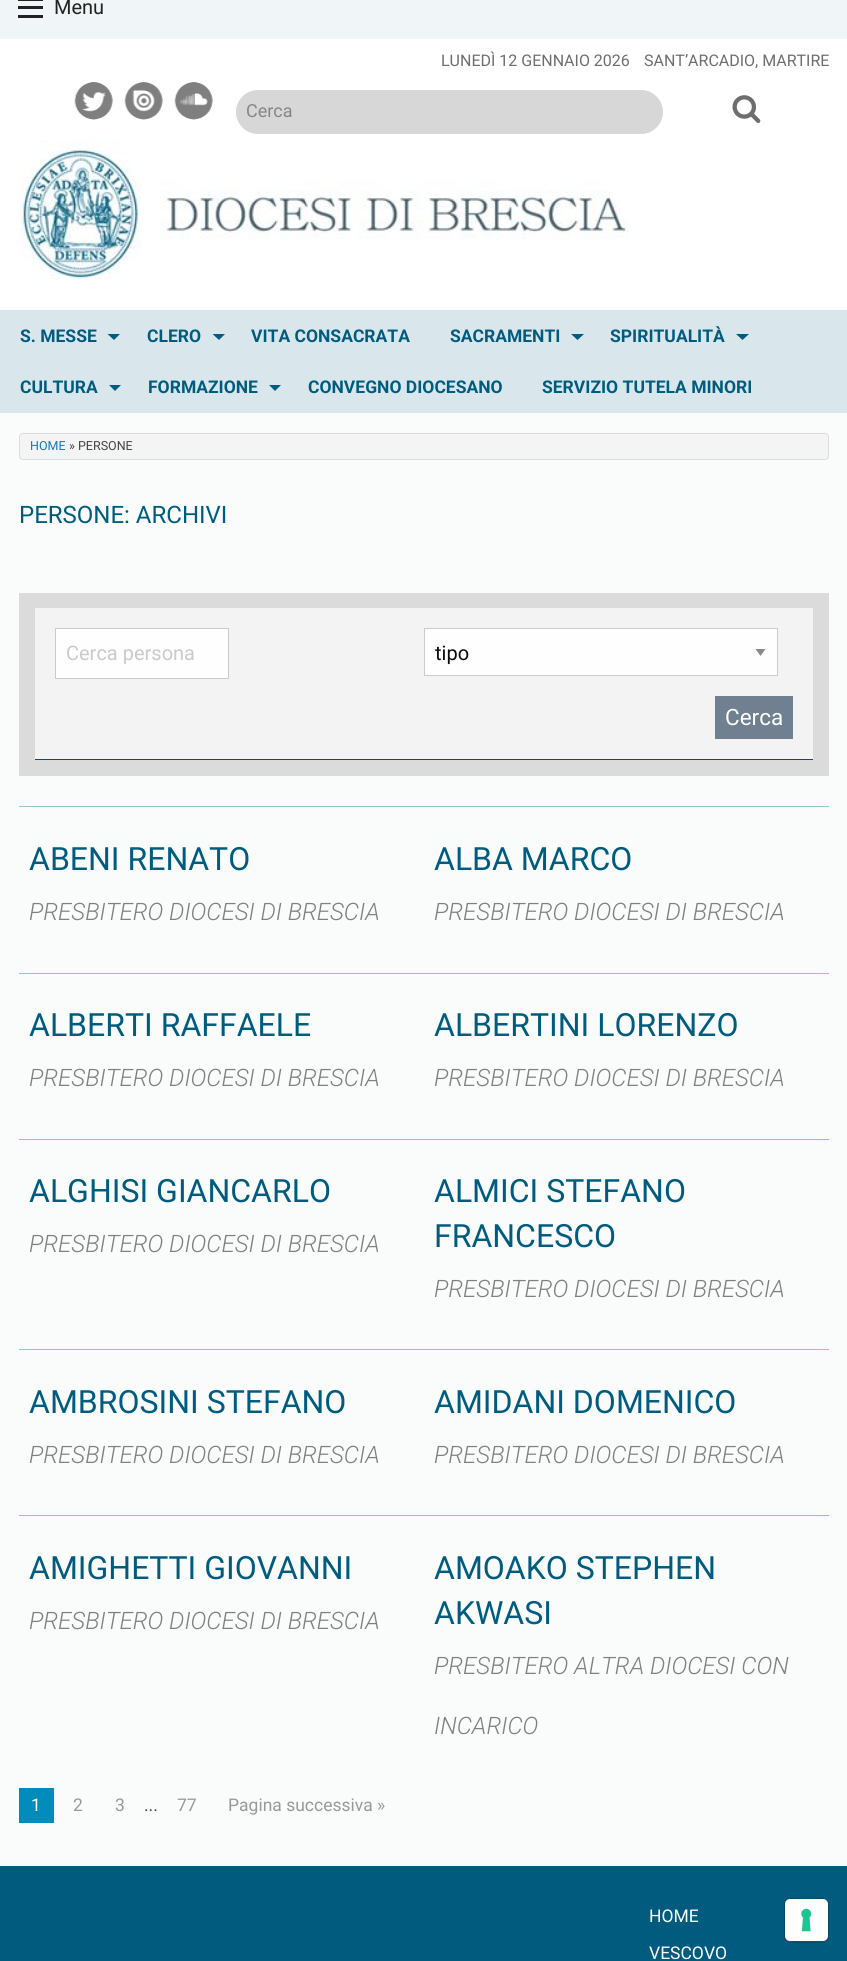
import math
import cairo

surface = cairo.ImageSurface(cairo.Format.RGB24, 847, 1961)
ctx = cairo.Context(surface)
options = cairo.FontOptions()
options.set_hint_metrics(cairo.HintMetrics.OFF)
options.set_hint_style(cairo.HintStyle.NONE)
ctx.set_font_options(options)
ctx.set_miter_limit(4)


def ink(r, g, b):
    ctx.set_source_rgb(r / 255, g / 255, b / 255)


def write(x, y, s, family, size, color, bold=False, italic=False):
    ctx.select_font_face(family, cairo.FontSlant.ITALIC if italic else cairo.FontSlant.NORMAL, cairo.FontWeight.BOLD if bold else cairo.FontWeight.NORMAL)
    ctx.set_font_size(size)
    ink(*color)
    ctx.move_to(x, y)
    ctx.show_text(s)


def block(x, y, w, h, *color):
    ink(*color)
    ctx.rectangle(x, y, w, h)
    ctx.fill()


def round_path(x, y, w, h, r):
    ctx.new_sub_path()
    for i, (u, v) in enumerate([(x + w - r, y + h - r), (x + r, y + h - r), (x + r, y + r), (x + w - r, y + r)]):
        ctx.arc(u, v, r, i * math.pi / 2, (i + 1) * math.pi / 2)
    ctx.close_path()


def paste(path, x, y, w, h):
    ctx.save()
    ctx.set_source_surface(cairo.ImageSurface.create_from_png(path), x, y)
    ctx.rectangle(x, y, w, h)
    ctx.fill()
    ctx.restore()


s1 = dict(family="Roboto", size=20, color=(34, 34, 34))
s2 = dict(family="Roboto", size=16, color=(110, 110, 110))
s3 = dict(family="Roboto", size=18, color=(134, 134, 134))
s4 = dict(family="Roboto", size=17.5, color=(0, 92, 127), bold=True)
s5 = dict(family="Roboto", size=12.5, color=(23, 121, 186))
s6 = dict(family="Roboto", size=12.5, color=(68, 68, 68))
s7 = dict(family="Roboto", size=24, color=(0, 92, 127))
s8 = dict(family="Roboto", size=20, color=(202, 202, 202))
s9 = dict(family="Roboto", size=20, color=(10, 10, 10))
s10 = dict(family="Roboto", size=22.5, color=(255, 255, 255))
s11 = dict(family="Roboto", size=32, color=(0, 92, 127))
s12 = dict(family="Roboto Light", size=24, color=(128, 128, 128), italic=True)
s13 = dict(family="Roboto", size=17.5, color=(255, 255, 255))
s14 = dict(family="Roboto", size=17.5, color=(153, 153, 153))
s15 = dict(family="Roboto", size=17.5, color=(68, 68, 68))

ink(255, 255, 255)
ctx.paint()
block(0, 0, 847, 39, 240, 245, 247)
block(18, 15, 25, 3, 34, 34, 34)
block(18, 6, 25, 3, 34, 34, 34)
block(18, 0, 25, 1, 34, 34, 34)
write(54, 14, "Menu", **s1)
write(441, 66, "LUNEDÌ 12 GENNAIO 2026", **s2)
write(644, 66, "SANT’ARCADIO, MARTIRE", **s2)
paste("pic1.png", 74, 82, 39, 38)
paste("pic2.png", 124, 82, 39, 38)
paste("pic3.png", 174, 82, 39, 38)
ink(215, 215, 215)
round_path(235.5, 89.5, 428, 45, 22.5)
ctx.fill_preserve()
ink(255, 255, 255)
ctx.set_line_width(1)
ctx.stroke()
write(246, 117, "Cerca", **s3)
paste("pic4.png", 732, 95, 29, 28)
paste("pic5.png", 20, 140, 610, 140)
block(0, 310, 847, 103, 217, 231, 236)
write(20, 342, "S. MESSE", **s4)
ink(1, 92, 127)
ctx.new_path()
ctx.move_to(107.5, 334)
ctx.line_to(120, 334)
ctx.line_to(114, 340)
ctx.close_path()
ctx.fill()
write(147, 342, "CLERO", **s4)
ink(1, 92, 127)
ctx.new_path()
ctx.move_to(212.5, 334)
ctx.line_to(225, 334)
ctx.line_to(219, 340)
ctx.close_path()
ctx.fill()
write(251, 342, "VITA CONSACRATA", **s4)
write(450, 342, "SACRAMENTI", **s4)
ink(1, 92, 127)
ctx.new_path()
ctx.move_to(571, 334)
ctx.line_to(584, 334)
ctx.line_to(577.5, 340)
ctx.close_path()
ctx.fill()
write(610, 342, "SPIRITUALITÀ", **s4)
ink(1, 92, 127)
ctx.new_path()
ctx.move_to(736, 334)
ctx.line_to(749, 334)
ctx.line_to(742.5, 340)
ctx.close_path()
ctx.fill()
write(20, 393, "CULTURA", **s4)
ink(1, 92, 127)
ctx.new_path()
ctx.move_to(109, 385)
ctx.line_to(121, 385)
ctx.line_to(115, 391)
ctx.close_path()
ctx.fill()
write(148, 393, "FORMAZIONE", **s4)
ink(1, 92, 127)
ctx.new_path()
ctx.move_to(269, 385)
ctx.line_to(281, 385)
ctx.line_to(275, 391)
ctx.close_path()
ctx.fill()
write(308, 393, "CONVEGNO DIOCESANO", **s4)
write(542, 393, "SERVIZIO TUTELA MINORI", **s4)
block(0, 413, 847, 1453, 250, 251, 251)
ink(244, 244, 244)
round_path(19.5, 433.5, 809, 26, 3.5)
ctx.fill_preserve()
ink(220, 220, 220)
ctx.stroke()
write(30, 450, "HOME", **s5)
write(69, 450, "» PERSONE", **s6)
write(19, 523, "PERSONE: ARCHIVI", **s7)
block(19, 593, 810, 183, 219, 219, 219)
block(35, 608, 778, 151, 243, 243, 243)
block(35, 759, 778, 1, 19, 67, 140)
ink(254, 254, 254)
ctx.rectangle(55.5, 628.5, 173, 50)
ctx.fill_preserve()
ink(202, 202, 202)
ctx.stroke()
write(66, 660, "Cerca persona", **s8)
block(425, 629, 352, 46, 254, 254, 254)
ink(138, 138, 138)
ctx.new_path()
ctx.move_to(755.5, 649)
ctx.line_to(765.5, 649)
ctx.line_to(760.5, 656)
ctx.close_path()
ctx.fill()
ctx.rectangle(424.5, 628.5, 353, 47)
ink(204, 204, 204)
ctx.stroke()
write(435, 660, "tipo", **s9)
block(715, 696, 78, 43, 112, 128, 144)
write(725, 725, "Cerca", **s10)
block(19, 806, 810, 1, 150, 195, 212)
write(29, 870, "ABENI RENATO", **s11)
write(29, 920, "PRESBITERO DIOCESI DI BRESCIA", **s12)
write(434, 870, "ALBA MARCO", **s11)
write(434, 920, "PRESBITERO DIOCESI DI BRESCIA", **s12)
block(19, 973, 810, 1, 150, 195, 212)
write(29, 1036, "ALBERTI RAFFAELE", **s11)
write(29, 1086, "PRESBITERO DIOCESI DI BRESCIA", **s12)
write(434, 1036, "ALBERTINI LORENZO", **s11)
write(434, 1086, "PRESBITERO DIOCESI DI BRESCIA", **s12)
block(19, 1139, 810, 1, 150, 195, 212)
write(29, 1202, "ALGHISI GIANCARLO", **s11)
write(29, 1252, "PRESBITERO DIOCESI DI BRESCIA", **s12)
write(434, 1202, "ALMICI STEFANO", **s11)
write(434, 1247, "FRANCESCO", **s11)
write(434, 1297, "PRESBITERO DIOCESI DI BRESCIA", **s12)
block(19, 1349, 810, 1, 150, 195, 212)
write(29, 1413, "AMBROSINI STEFANO", **s11)
write(29, 1463, "PRESBITERO DIOCESI DI BRESCIA", **s12)
write(434, 1413, "AMIDANI DOMENICO", **s11)
write(434, 1463, "PRESBITERO DIOCESI DI BRESCIA", **s12)
block(19, 1515, 810, 1, 150, 195, 212)
write(29, 1579, "AMIGHETTI GIOVANNI", **s11)
write(29, 1629, "PRESBITERO DIOCESI DI BRESCIA", **s12)
write(434, 1579, "AMOAKO STEPHEN", **s11)
write(434, 1624, "AKWASI", **s11)
write(434, 1674, "PRESBITERO ALTRA DIOCESI CON", **s12)
write(434, 1734, "INCARICO", **s12)
block(19, 1788, 35, 35, 0, 140, 186)
write(31, 1811, "1", **s13)
write(73, 1811, "2", **s14)
write(115, 1811, "3", **s14)
write(144, 1811, "...", **s15)
write(177, 1811, "77", **s14)
write(228, 1811, "Pagina successiva »", **s14)
block(0, 1866, 847, 95, 0, 91, 126)
write(649, 1922, "HOME", **s13)
write(649, 1959, "VESCOVO", **s13)
ink(25, 71, 89)
round_path(798, 1911, 30, 30, 3)
ctx.fill()
round_path(784.5, 1898.5, 44, 44, 5.5)
ctx.set_source_rgba(0, 0, 0, 0.15)
ctx.stroke()
ink(255, 255, 255)
round_path(785, 1899, 43, 42, 5)
ctx.fill()
paste("pic6.png", 801, 1908, 11, 24)
surface.write_to_png("screenshot.png")
